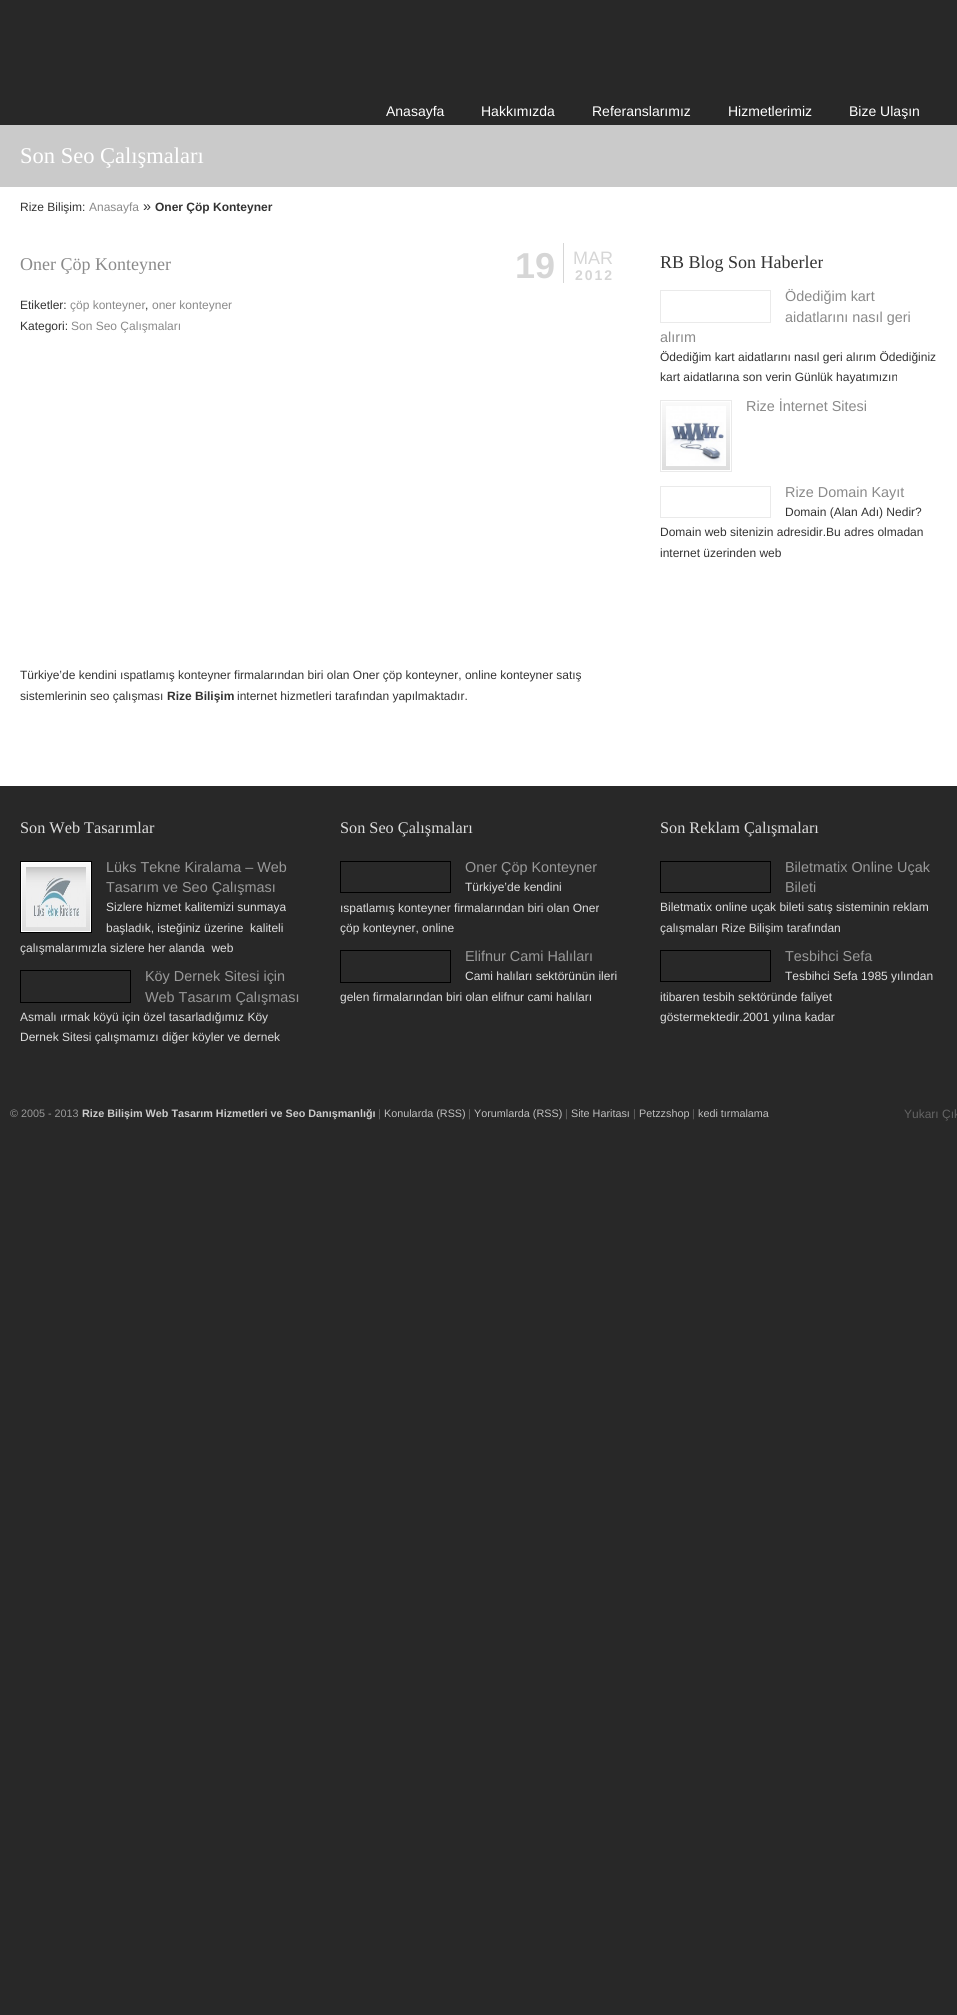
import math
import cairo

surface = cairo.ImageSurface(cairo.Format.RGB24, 957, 2015)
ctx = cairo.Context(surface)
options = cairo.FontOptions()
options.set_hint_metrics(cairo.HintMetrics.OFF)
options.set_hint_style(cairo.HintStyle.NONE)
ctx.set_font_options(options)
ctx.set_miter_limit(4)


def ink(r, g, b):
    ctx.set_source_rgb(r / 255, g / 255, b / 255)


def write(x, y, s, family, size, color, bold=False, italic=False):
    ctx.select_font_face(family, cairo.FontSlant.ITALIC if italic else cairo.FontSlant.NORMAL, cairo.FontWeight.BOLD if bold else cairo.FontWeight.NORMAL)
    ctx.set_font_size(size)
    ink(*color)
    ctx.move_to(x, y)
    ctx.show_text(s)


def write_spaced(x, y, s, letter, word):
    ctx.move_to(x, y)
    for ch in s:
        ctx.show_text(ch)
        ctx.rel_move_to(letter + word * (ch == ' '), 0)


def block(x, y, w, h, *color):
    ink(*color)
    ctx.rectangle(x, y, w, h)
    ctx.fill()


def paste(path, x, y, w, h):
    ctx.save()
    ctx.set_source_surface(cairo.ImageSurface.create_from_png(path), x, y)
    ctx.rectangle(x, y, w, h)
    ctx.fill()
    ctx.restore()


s1 = dict(family="Liberation Sans", size=14, color=(255, 255, 255))
s2 = dict(family="Liberation Serif", size=22.5, color=(255, 255, 255))
s3 = dict(family="Liberation Sans", size=12, color=(51, 51, 51))
s4 = dict(family="Liberation Sans", size=12, color=(138, 138, 138))
s5 = dict(family="Liberation Sans", size=14.4, color=(51, 51, 51))
s6 = dict(family="Liberation Sans", size=12, color=(51, 51, 51), bold=True)
s7 = dict(family="Liberation Serif", size=18, color=(138, 138, 138))
s8 = dict(family="Liberation Sans", size=36, color=(214, 214, 214), bold=True)
s9 = dict(family="Liberation Sans", size=18, color=(214, 214, 214))
s10 = dict(family="Liberation Serif", size=18, color=(51, 51, 51))
s11 = dict(family="Liberation Sans", size=14.4, color=(138, 138, 138))
s12 = dict(family="Liberation Serif", size=16.25, color=(221, 221, 221))
s13 = dict(family="Liberation Sans", size=14.4, color=(153, 153, 153))
s14 = dict(family="Liberation Sans", size=12, color=(221, 221, 221))
s15 = dict(family="Liberation Sans", size=10.8, color=(153, 153, 153))
s16 = dict(family="Liberation Sans", size=10.8, color=(204, 204, 204), bold=True)
s17 = dict(family="Liberation Sans", size=10.8, color=(99, 99, 99))
s18 = dict(family="Liberation Sans", size=10.8, color=(191, 191, 191))
s19 = dict(family="Liberation Sans", size=12, color=(99, 99, 99))

ink(40, 40, 40)
ctx.paint()
write(386, 116, "Anasayfa", **s1)
write(481, 116, "Hakkımızda", **s1)
write(592, 116, "Referanslarımız", **s1)
write(728, 116, "Hizmetlerimiz", **s1)
write(849, 116, "Bize Ulaşın", **s1)
block(0, 125, 957, 62, 202, 202, 202)
write(20, 163, "Son Seo Çalışmaları", **s2)
block(0, 187, 957, 599, 255, 255, 255)
write(20, 211, "Rize Bilişim:", **s3)
write(89, 211, "Anasayfa", **s4)
write(143, 211, "»", **s5)
write(155, 211, "Oner Çöp Konteyner", **s6)
write(20, 270, "Oner Çöp Konteyner", **s7)
block(563, 243, 1, 40, 214, 214, 214)
write(515, 278, "19", **s8)
write(573, 264, "MAR", **s9)
ctx.select_font_face("Liberation Sans", cairo.FontSlant.NORMAL, cairo.FontWeight.BOLD)
ctx.set_font_size(14)
write_spaced(575, 280, "2012", 2, 0)
write(20, 309, "Etiketler:", **s3)
write(70, 309, "çöp konteyner", **s4)
write(145, 309, ",", **s3)
write(152, 309, "oner konteyner", **s4)
write(20, 330, "Kategori:", **s3)
write(71, 330, "Son Seo Çalışmaları", **s4)
write(20, 679, "Türkiye’de kendini ıspatlamış konteyner firmalarından biri olan Oner çöp konteyner, online konteyner satış", **s3)
write(20, 700, "sistemlerinin seo çalışması", **s3)
write(167, 700, "Rize Bilişim", **s6)
write(237, 700, "internet hizmetleri tarafından yapılmaktadır.", **s3)
write(660, 268, "RB Blog Son Haberler", **s10)
ctx.rectangle(660.5, 290.5, 110, 32)
ink(234, 234, 234)
ctx.set_line_width(1)
ctx.stroke()
write(785, 301, "Ödediğim kart", **s11)
write(785, 322, "aidatlarını nasıl geri", **s11)
write(660, 342, "alırım", **s11)
write(660, 361, "Ödediğim kart aidatlarını nasıl geri alırım Ödediğiniz", **s3)
write(660, 381, "kart aidatlarına son verin Günlük hayatımızın", **s3)
ctx.rectangle(660.5, 400.5, 71, 71)
ink(234, 234, 234)
ctx.stroke()
gradient = cairo.LinearGradient(662, 402, 662, 470)
gradient.add_color_stop_rgba(0, 0.98, 0.98, 0.98, 1)
gradient.add_color_stop_rgba(1, 0.867, 0.867, 0.867, 1)
ctx.set_source(gradient)
ctx.rectangle(662, 402, 68, 68)
ctx.fill()
paste("pic1.png", 666, 406, 60, 60)
write(746, 411, "Rize İnternet Sitesi", **s11)
ctx.rectangle(660.5, 486.5, 110, 31)
ink(234, 234, 234)
ctx.stroke()
write(785, 497, "Rize Domain Kayıt", **s11)
write(785, 516, "Domain (Alan Adı) Nedir?", **s3)
write(660, 536, "Domain web sitenizin adresidir.Bu adres olmadan", **s3)
write(660, 557, "internet üzerinden web", **s3)
write(20, 833, "Son Web Tasarımlar", **s12)
ctx.rectangle(20.5, 861.5, 71, 71)
ink(0, 0, 0)
ctx.stroke()
gradient = cairo.LinearGradient(22, 863, 22, 931)
gradient.add_color_stop_rgba(0, 0.98, 0.98, 0.98, 1)
gradient.add_color_stop_rgba(1, 0.867, 0.867, 0.867, 1)
ctx.set_source(gradient)
ctx.rectangle(22, 863, 68, 68)
ctx.fill()
ctx.rectangle(21.5, 862.5, 69, 69)
ink(255, 255, 255)
ctx.stroke()
paste("pic2.png", 26, 867, 60, 60)
write(106, 872, "Lüks Tekne Kiralama – Web", **s13)
write(106, 892, "Tasarım ve Seo Çalışması", **s13)
write(106, 911, "Sizlere hizmet kalitemizi sunmaya", **s14)
write(106, 932, "başladık, isteğiniz üzerine  kaliteli", **s14)
write(20, 952, "çalışmalarımızla sizlere her alanda  web", **s14)
ctx.rectangle(20.5, 970.5, 110, 32)
ink(0, 0, 0)
ctx.stroke()
write(145, 981, "Köy Dernek Sitesi için", **s13)
write(145, 1002, "Web Tasarım Çalışması", **s13)
write(20, 1021, "Asmalı ırmak köyü için özel tasarladığımız Köy", **s14)
write(20, 1041, "Dernek Sitesi çalışmamızı diğer köyler ve dernek", **s14)
write(340, 833, "Son Seo Çalışmaları", **s12)
ctx.rectangle(340.5, 861.5, 110, 31)
ink(0, 0, 0)
ctx.stroke()
write(465, 872, "Oner Çöp Konteyner", **s13)
write(465, 891, "Türkiye’de kendini", **s14)
write(340, 912, "ıspatlamış konteyner firmalarından biri olan Oner", **s14)
write(340, 932, "çöp konteyner, online", **s14)
ctx.rectangle(340.5, 950.5, 110, 32)
ink(0, 0, 0)
ctx.stroke()
write(465, 961, "Elifnur Cami Halıları", **s13)
write(465, 980, "Cami halıları sektörünün ileri", **s14)
write(340, 1001, "gelen firmalarından biri olan elifnur cami halıları", **s14)
write(660, 833, "Son Reklam Çalışmaları", **s12)
ctx.rectangle(660.5, 861.5, 110, 31)
ink(0, 0, 0)
ctx.stroke()
write(785, 872, "Biletmatix Online Uçak", **s13)
write(785, 892, "Bileti", **s13)
write(660, 911, "Biletmatix online uçak bileti satış sisteminin reklam", **s14)
write(660, 932, "çalışmaları Rize Bilişim tarafından", **s14)
ctx.rectangle(660.5, 950.5, 110, 31)
ink(0, 0, 0)
ctx.stroke()
write(785, 961, "Tesbihci Sefa", **s13)
write(785, 980, "Tesbihci Sefa 1985 yılından", **s14)
write(660, 1001, "itibaren tesbih sektöründe faliyet", **s14)
write(660, 1021, "göstermektedir.2001 yılına kadar", **s14)
write(10, 1117, "© 2005 - 2013", **s15)
write(82, 1117, "Rize Bilişim Web Tasarım Hizmetleri ve Seo Danışmanlığı", **s16)
write(378, 1117, "|", **s17)
write(384, 1117, "Konularda (RSS)", **s18)
write(468, 1117, "|", **s17)
write(474, 1117, "Yorumlarda (RSS)", **s18)
write(565, 1117, "|", **s17)
write(571, 1117, "Site Haritası", **s18)
write(633, 1117, "|", **s17)
write(639, 1117, "Petzzshop", **s18)
write(692, 1117, "|", **s17)
write(698, 1117, "kedi tırmalama", **s18)
write(904, 1118, "Yukarı Çık", **s19)
surface.write_to_png("screenshot.png")
